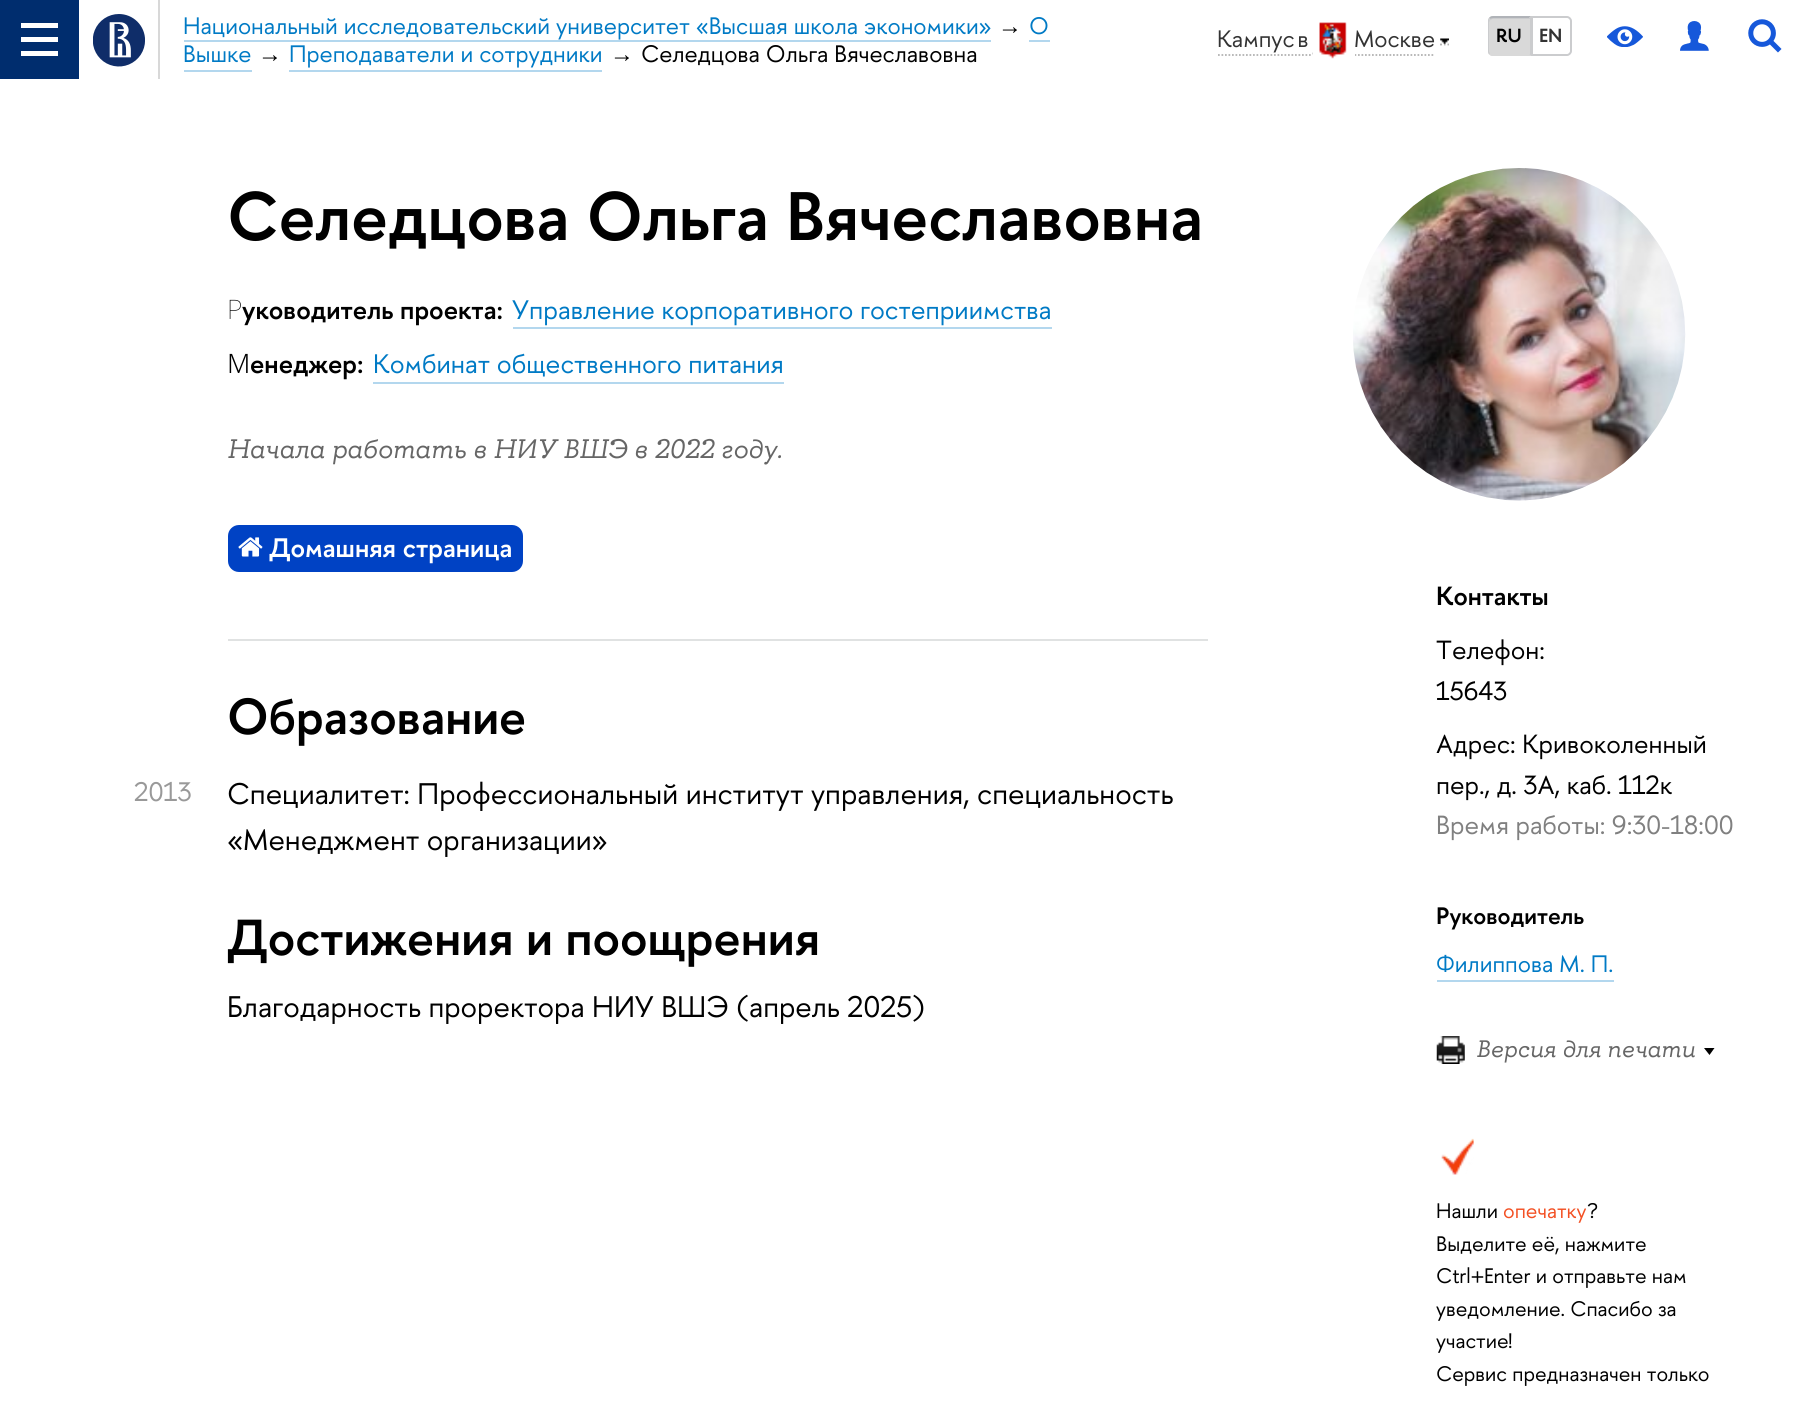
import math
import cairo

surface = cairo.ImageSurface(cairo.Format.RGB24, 1816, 1407)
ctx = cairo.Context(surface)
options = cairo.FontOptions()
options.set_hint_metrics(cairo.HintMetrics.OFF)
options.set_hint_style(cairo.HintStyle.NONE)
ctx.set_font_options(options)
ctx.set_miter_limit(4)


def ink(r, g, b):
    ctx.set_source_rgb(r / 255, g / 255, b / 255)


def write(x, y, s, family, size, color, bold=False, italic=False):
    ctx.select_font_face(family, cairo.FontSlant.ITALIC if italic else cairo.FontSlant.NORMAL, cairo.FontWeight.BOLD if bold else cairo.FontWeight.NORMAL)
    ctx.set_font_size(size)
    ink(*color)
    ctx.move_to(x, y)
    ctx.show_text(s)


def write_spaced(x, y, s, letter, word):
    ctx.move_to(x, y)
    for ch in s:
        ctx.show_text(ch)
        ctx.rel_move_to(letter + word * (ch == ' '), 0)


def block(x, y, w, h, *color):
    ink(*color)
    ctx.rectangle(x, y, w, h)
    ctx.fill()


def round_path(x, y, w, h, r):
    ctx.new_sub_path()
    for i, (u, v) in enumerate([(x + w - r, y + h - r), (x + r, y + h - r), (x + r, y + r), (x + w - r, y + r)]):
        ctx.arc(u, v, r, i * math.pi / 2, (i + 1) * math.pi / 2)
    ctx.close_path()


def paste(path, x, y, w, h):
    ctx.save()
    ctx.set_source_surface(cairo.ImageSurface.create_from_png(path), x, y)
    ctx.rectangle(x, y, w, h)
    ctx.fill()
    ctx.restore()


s1 = dict(family="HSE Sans", size=23.8, color=(0, 122, 197))
s2 = dict(family="Liberation Sans", size=23.8, color=(0, 0, 0))
s3 = dict(family="HSE Sans", size=23.8, color=(0, 0, 0))
s4 = dict(family="HSE Sans", size=23.8, color=(51, 51, 51))
s5 = dict(family="HSE Sans SemiBold", size=19, color=(0, 0, 0))
s6 = dict(family="HSE Sans SemiBold", size=19, color=(51, 51, 51))
s7 = dict(family="HSE Sans SemiBold", size=68.4, color=(0, 0, 0))
s8 = dict(family="Noto Sans Thin", size=26.75, color=(0, 0, 0))
s9 = dict(family="HSE Sans SemiBold", size=26.75, color=(0, 0, 0))
s10 = dict(family="HSE Sans", size=26.75, color=(0, 122, 197))
s11 = dict(family="Noto Sans Light", size=26.75, color=(0, 0, 0))
s12 = dict(family="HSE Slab", size=26.75, color=(102, 102, 102), italic=True)
s13 = dict(family="HSE Sans SemiBold", size=26.75, color=(255, 255, 255))
s14 = dict(family="HSE Sans SemiBold", size=50.5, color=(0, 0, 0))
s15 = dict(family="HSE Sans", size=26.75, color=(153, 153, 153))
s16 = dict(family="HSE Sans", size=29.75, color=(0, 0, 0))
s17 = dict(family="HSE Sans SemiBold", size=26.25, color=(0, 0, 0))
s18 = dict(family="HSE Sans", size=26.25, color=(0, 0, 0))
s19 = dict(family="HSE Sans", size=26.25, color=(128, 128, 128))
s20 = dict(family="HSE Sans SemiBold", size=23.8, color=(0, 0, 0))
s21 = dict(family="HSE Slab", size=23.8, color=(102, 102, 102), italic=True)
s22 = dict(family="HSE Sans", size=21, color=(0, 0, 0))
s23 = dict(family="HSE Sans", size=21, color=(243, 80, 35))

ink(255, 255, 255)
ctx.paint()
block(0, 0, 79, 79, 0, 45, 110)
block(21, 23, 37, 5, 255, 255, 255)
block(21, 37, 37, 5, 255, 255, 255)
block(21, 51, 37, 5, 255, 255, 255)
block(158, 0, 2, 79, 216, 216, 216)
paste("pic1.png", 93, 14, 52, 53)
write(183, 34, "Национальный исследовательский университет «Высшая школа экономики»", **s1)
block(184, 40, 807, 2, 179, 215, 238)
write(998, 34, "→", **s2)
write(1029, 34, "О", **s1)
block(1029, 40, 21, 2, 179, 215, 238)
write(183, 62, "Вышке", **s1)
block(184, 70, 68, 2, 179, 215, 238)
write(258, 62, "→", **s2)
write(289, 62, "Преподаватели и сотрудники", **s1)
block(289, 70, 313, 2, 179, 215, 238)
write(610, 62, "→", **s2)
write(641, 62, "Селедцова Ольга Вячеславовна", **s3)
ctx.new_path()
ctx.move_to(1218, 55)
ctx.line_to(1312.5, 55)
ink(179, 179, 179)
ctx.set_line_width(1.8)
ctx.set_dash([1.75, 1.75])
ctx.stroke()
ctx.new_path()
ctx.move_to(1312.5, 53.5)
ctx.line_to(1354.5, 53.5)
ctx.stroke()
ctx.new_path()
ctx.move_to(1354.5, 55)
ctx.line_to(1435, 55)
ctx.stroke()
ctx.new_path()
ctx.move_to(1440, 44.5)
ctx.line_to(1442, 44.5)
ctx.move_to(1444, 44.5)
ctx.line_to(1445.5, 44.5)
ctx.move_to(1447.5, 44.5)
ctx.line_to(1449, 44.5)
ctx.set_dash([])
ctx.stroke()
ink(51, 51, 51)
write_spaced(1217, 47, "Кампус в", 0, -3)
block(1313, 52, 42, 4, 255, 255, 255)
paste("pic2.png", 1319, 22, 28, 37)
write(1354, 47, "Москве", **s4)
paste("pic3.png", 1440, 38, 9, 6)
ink(217, 217, 217)
ctx.new_path()
ctx.move_to(1493, 16)
ctx.line_to(1531, 16)
ctx.line_to(1531, 56)
ctx.line_to(1493, 56)
ctx.curve_to(1490, 56, 1488, 54, 1488, 51)
ctx.line_to(1488, 21)
ctx.curve_to(1488, 18, 1490, 16, 1493, 16)
ctx.close_path()
ctx.fill()
ink(203, 204, 206)
ctx.new_path()
ctx.move_to(1493, 19)
ctx.line_to(1530, 19)
ctx.line_to(1530, 18)
ctx.line_to(1493, 18)
ctx.curve_to(1491, 18, 1489, 20, 1489, 22)
ctx.line_to(1489, 23)
ctx.curve_to(1489, 21, 1491, 19, 1493, 19)
ctx.close_path()
ctx.fill()
ink(176, 179, 184)
ctx.new_path()
ctx.move_to(1493, 16)
ctx.curve_to(1491, 16, 1490, 17, 1489, 18)
ctx.line_to(1490, 19)
ctx.line_to(1493, 18)
ctx.line_to(1529, 18)
ctx.line_to(1531, 16)
ctx.close_path()
ctx.fill()
ink(203, 204, 206)
ctx.new_path()
ctx.move_to(1531, 56)
ctx.line_to(1531, 16)
ctx.line_to(1529, 18)
ctx.line_to(1530, 18)
ctx.line_to(1530, 54)
ctx.line_to(1529, 54)
ctx.close_path()
ctx.fill()
ink(217, 217, 217)
ctx.new_path()
ctx.move_to(1493, 56)
ctx.line_to(1531, 56)
ctx.line_to(1529, 54)
ctx.line_to(1493, 54)
ctx.line_to(1490, 53)
ctx.line_to(1489, 54)
ctx.curve_to(1490, 55, 1491, 56, 1493, 56)
ctx.close_path()
ctx.fill()
ink(203, 204, 206)
ctx.new_path()
ctx.move_to(1489.5, 17.5)
ctx.curve_to(1488.5, 18.5, 1488, 19.5, 1488, 21)
ctx.line_to(1488, 51)
ctx.curve_to(1488, 52.5, 1488.5, 53.5, 1489, 54.5)
ctx.line_to(1490, 53)
ctx.curve_to(1489.5, 53, 1489, 52, 1489, 51)
ctx.line_to(1489, 21)
ctx.curve_to(1489, 20, 1489.5, 19, 1490.5, 18.5)
ctx.close_path()
ctx.fill()
write(1496, 42, "RU", **s5)
ctx.new_path()
ctx.move_to(1532, 17)
ctx.line_to(1567, 17)
ctx.curve_to(1569, 17, 1571, 19, 1571, 21)
ctx.line_to(1571, 51)
ctx.curve_to(1571, 53, 1569, 55, 1567, 55)
ctx.line_to(1532, 55)
ctx.close_path()
ink(203, 204, 206)
ctx.set_line_width(2)
ctx.stroke()
write(1539, 42, "EN", **s6)
paste("pic4.png", 1607, 26, 36, 21)
paste("pic5.png", 1680, 21, 29, 30)
paste("pic6.png", 1748, 19, 34, 34)
write(227, 240, "Селедцова Ольга Вячеславовна", **s7)
write(227, 319, "Р", **s8)
write(242, 319, "уководитель проекта:", **s9)
write(512, 319, "Управление корпоративного гостеприимства", **s10)
block(513, 327, 539, 2, 179, 215, 238)
write(227, 373, "М", **s11)
write(250, 373, "енеджер:", **s9)
write(373, 373, "Комбинат общественного питания", **s10)
block(373, 382, 411, 2, 179, 215, 238)
write(227, 458, "Начала работать в НИУ ВШЭ в 2022 году.", **s12)
ink(0, 66, 196)
round_path(228, 525, 295, 47, 11)
ctx.fill()
paste("pic7.png", 238, 537, 25, 20)
write(269, 557, "Домашняя страница", **s13)
block(228, 639, 980, 2, 224, 226, 226)
write(227, 734, "Oбразование", **s14)
write(134, 801, "2013", **s15)
write(227, 804, "Специалитет: Профессиональный институт управления, специальность", **s16)
write(227, 850, "«Менеджмент организации»", **s16)
write(227, 955, "Достижения и поощрения", **s14)
write(227, 1017, "Благодарность проректора НИУ ВШЭ (апрель 2025)", **s16)
paste("pic8.png", 1353, 168, 333, 333)
write(1436, 605, "Контакты", **s17)
write(1436, 659, "Телефон:", **s18)
write(1436, 700, "15643", **s18)
write(1436, 753, "Адрес: Кривоколенный", **s18)
write(1436, 794, "пер., д. 3А, каб. 112к", **s18)
write(1436, 834, "Время работы: 9:30-18:00", **s19)
write(1436, 924, "Руководитель", **s20)
write(1436, 972, "Филиппова М. П.", **s1)
block(1437, 980, 177, 2, 179, 215, 238)
paste("pic9.png", 1436, 1036, 29, 28)
write(1476, 1057, "Версия для печати", **s21)
ink(0, 0, 0)
ctx.new_path()
ctx.move_to(1704, 1048)
ctx.line_to(1714.5, 1048)
ctx.line_to(1709.5, 1055)
ctx.close_path()
ctx.fill()
paste("pic10.png", 1441, 1138, 33, 37)
write(1436, 1218, "Нашли", **s22)
write(1503, 1218, "опечатку", **s23)
write(1587, 1218, "?", **s22)
write(1436, 1251, "Выделите её, нажмите", **s22)
write(1436, 1283, "Ctrl+Enter и отправьте нам", **s22)
write(1436, 1316, "уведомление. Спасибо за", **s22)
write(1436, 1348, "участие!", **s22)
write(1436, 1381, "Сервис предназначен только", **s22)
surface.write_to_png("screenshot.png")
